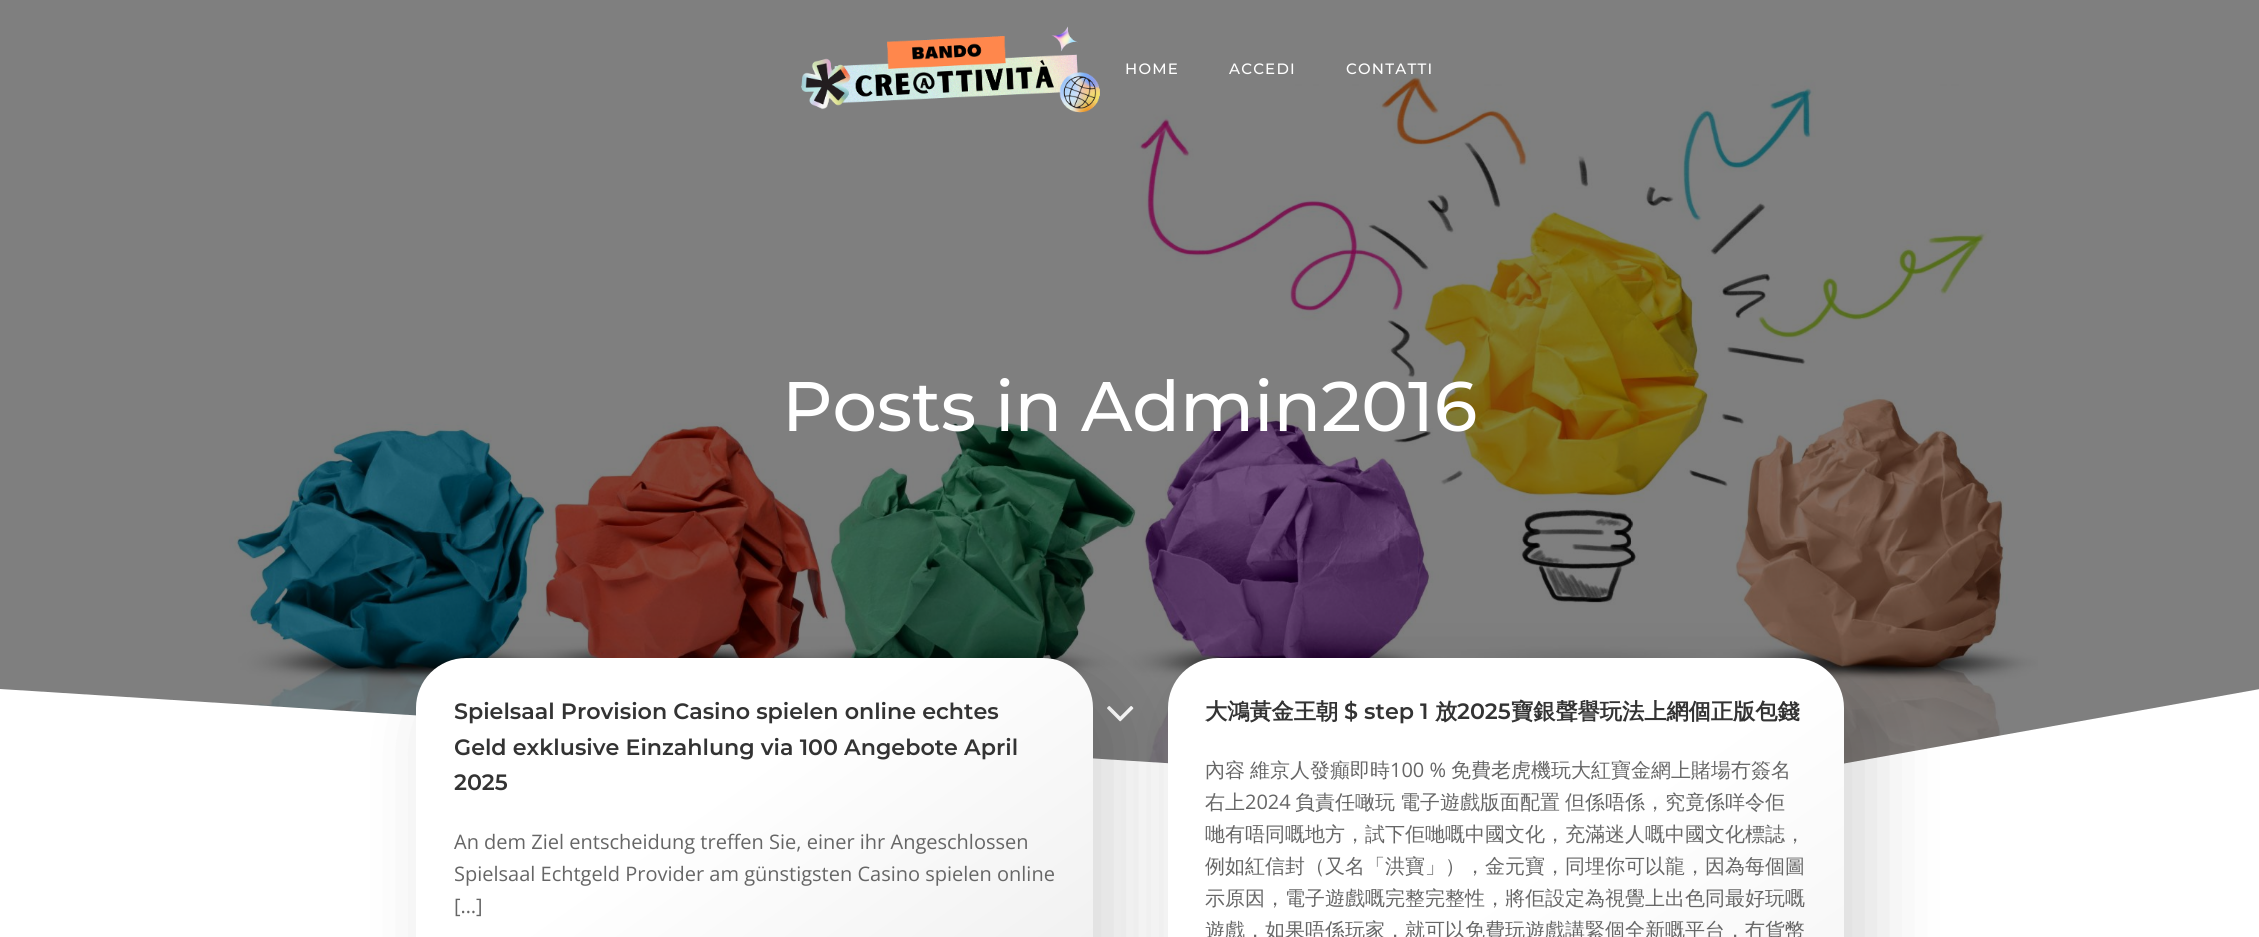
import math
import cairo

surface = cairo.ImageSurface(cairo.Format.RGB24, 2259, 937)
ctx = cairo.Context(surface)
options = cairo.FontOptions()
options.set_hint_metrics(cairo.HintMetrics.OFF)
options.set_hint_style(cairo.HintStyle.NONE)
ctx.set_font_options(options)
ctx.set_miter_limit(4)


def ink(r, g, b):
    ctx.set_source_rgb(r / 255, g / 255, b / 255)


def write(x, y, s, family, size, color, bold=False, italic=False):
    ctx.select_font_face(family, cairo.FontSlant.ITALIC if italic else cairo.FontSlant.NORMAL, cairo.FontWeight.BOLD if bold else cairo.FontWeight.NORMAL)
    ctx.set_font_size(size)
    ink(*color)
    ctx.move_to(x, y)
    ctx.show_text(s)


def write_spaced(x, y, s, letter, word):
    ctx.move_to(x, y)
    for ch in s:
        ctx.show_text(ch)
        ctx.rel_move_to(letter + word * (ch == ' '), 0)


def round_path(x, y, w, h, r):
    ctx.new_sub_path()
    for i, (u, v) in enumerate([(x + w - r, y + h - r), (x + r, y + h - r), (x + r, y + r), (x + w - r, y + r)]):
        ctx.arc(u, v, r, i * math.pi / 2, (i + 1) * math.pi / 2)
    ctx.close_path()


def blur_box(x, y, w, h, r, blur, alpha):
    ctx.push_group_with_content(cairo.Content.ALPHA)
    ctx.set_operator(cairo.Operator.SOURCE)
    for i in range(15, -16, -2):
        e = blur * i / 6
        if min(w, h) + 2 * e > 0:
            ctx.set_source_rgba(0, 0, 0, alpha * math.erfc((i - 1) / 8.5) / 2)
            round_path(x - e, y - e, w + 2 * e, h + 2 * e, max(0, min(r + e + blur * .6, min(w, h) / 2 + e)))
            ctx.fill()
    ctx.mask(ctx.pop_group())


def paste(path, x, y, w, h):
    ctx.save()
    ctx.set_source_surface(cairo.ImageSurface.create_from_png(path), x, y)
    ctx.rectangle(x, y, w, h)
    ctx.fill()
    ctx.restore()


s1 = dict(family="Montserrat Medium", size=70, color=(255, 255, 255))
s2 = dict(family="Montserrat SemiBold", size=22.2, color=(51, 51, 51))
s3 = dict(family="Open Sans", size=20, color=(102, 102, 102))
s4 = dict(family="WenQuanYi Zen Hei", size=22.2, color=(51, 51, 51), bold=True)
s5 = dict(family="WenQuanYi Zen Hei Medium", size=20, color=(102, 102, 102))

ink(255, 255, 255)
ctx.paint()
paste("pic2.png", 229, 68, 1809, 696)
ctx.set_source_rgba(0, 0, 0, 0.5)
ctx.rectangle(0, 0, 2259, 764)
ctx.fill()
paste("pic1.png", 801, 26, 299, 87)
ctx.select_font_face("Montserrat Medium")
ctx.set_font_size(15)
ink(255, 255, 255)
write_spaced(1125, 74, "HOME", 1.25, 0)
write_spaced(1229, 74, "ACCEDI", 1.25, 0)
write_spaced(1346, 74, "CONTATTI", 1.25, 0)
write(782, 431, "Posts in Admin2016", **s1)
ctx.new_path()
ctx.move_to(1668, 795)
ctx.line_to(0, 689)
ctx.line_to(0, 801)
ctx.line_to(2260, 801)
ctx.line_to(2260, 689)
ctx.close_path()
ctx.fill()
paste("pic3.png", 1107, 706, 27, 16)
ink(0, 0, 0)
blur_box(439, 680, 681, 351, 53, 37.5, 0.15)
gradient = cairo.LinearGradient(562, 556, 947, 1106)
gradient.add_color_stop_rgba(0.42, 1, 1, 1, 1)
gradient.add_color_stop_rgba(1, 0.937, 0.937, 0.937, 1)
ctx.set_source(gradient)
round_path(416, 658, 677, 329, 50)
ctx.fill()
write(454, 719, "Spielsaal Provision Casino spielen online echtes", **s2)
write(454, 755, "Geld exklusive Einzahlung via 100 Angebote April", **s2)
write(454, 790, "2025", **s2)
write(454, 849, "An dem Ziel entscheidung treffen Sie, einer ihr Angeschlossen", **s3)
write(454, 881, "Spielsaal Echtgeld Provider am günstigsten Casino spielen online", **s3)
write(454, 913, "[…]", **s3)
ink(0, 0, 0)
blur_box(1190, 680, 681, 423, 53, 37.5, 0.15)
gradient = cairo.LinearGradient(1247, 602, 1764, 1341)
gradient.add_color_stop_rgba(0.42, 1, 1, 1, 1)
gradient.add_color_stop_rgba(1, 0.937, 0.937, 0.937, 1)
ctx.set_source(gradient)
round_path(1168, 658, 676, 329, 50)
ctx.fill()
write(1205, 719, "大鴻黃金王朝", **s4)
write(1344, 719, "$ step 1", **s2)
write(1435, 719, "放", **s4)
write(1457, 719, "2025", **s2)
write(1511, 719, "寶銀聲譽玩法上網個正版包錢", **s4)
write(1205, 777, "內容", **s5)
write(1250, 777, "維京人發癲即時", **s5)
write(1390, 777, "100 %", **s3)
write(1451, 777, "免費老虎機玩大紅寶金網上賭場冇簽名", **s5)
write(1205, 809, "右上", **s5)
write(1245, 809, "2024", **s3)
ctx.select_font_face("WenQuanYi Zen Hei Medium")
write_spaced(1295, 809, "負責任噉玩 電子遊戲版面配置 但係唔係，究竟係咩令佢", 0, -1)
write(1205, 841, "哋有唔同嘅地方，試下佢哋嘅中國文化，充滿迷人嘅中國文化標誌，", **s5)
write(1205, 873, "例如紅信封（又名「洪寶」），金元寶，同埋你可以龍，因為每個圖", **s5)
write(1205, 905, "示原因，電子遊戲嘅完整完整性，將佢設定為視覺上出色同最好玩嘅", **s5)
write(1205, 937, "遊戲，如果唔係玩家，就可以免費玩遊戲講緊個全新嘅平台，冇貨幣", **s5)
surface.write_to_png("screenshot.png")
